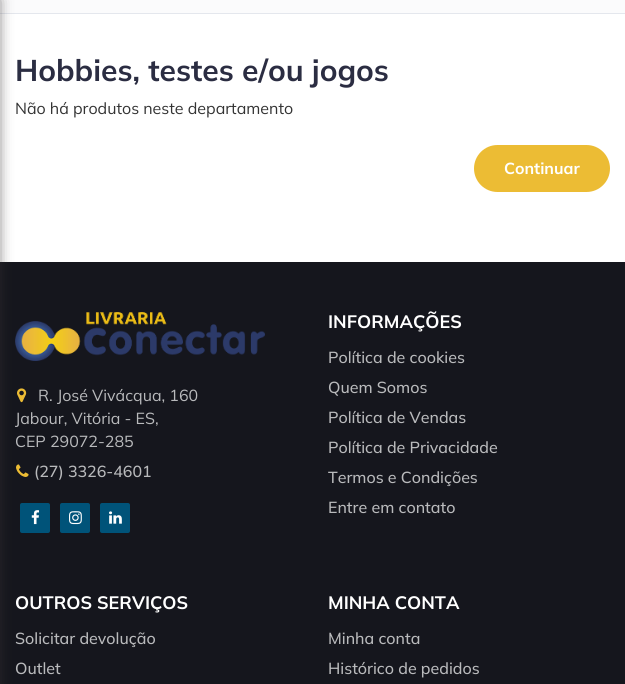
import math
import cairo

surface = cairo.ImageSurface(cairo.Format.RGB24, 625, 684)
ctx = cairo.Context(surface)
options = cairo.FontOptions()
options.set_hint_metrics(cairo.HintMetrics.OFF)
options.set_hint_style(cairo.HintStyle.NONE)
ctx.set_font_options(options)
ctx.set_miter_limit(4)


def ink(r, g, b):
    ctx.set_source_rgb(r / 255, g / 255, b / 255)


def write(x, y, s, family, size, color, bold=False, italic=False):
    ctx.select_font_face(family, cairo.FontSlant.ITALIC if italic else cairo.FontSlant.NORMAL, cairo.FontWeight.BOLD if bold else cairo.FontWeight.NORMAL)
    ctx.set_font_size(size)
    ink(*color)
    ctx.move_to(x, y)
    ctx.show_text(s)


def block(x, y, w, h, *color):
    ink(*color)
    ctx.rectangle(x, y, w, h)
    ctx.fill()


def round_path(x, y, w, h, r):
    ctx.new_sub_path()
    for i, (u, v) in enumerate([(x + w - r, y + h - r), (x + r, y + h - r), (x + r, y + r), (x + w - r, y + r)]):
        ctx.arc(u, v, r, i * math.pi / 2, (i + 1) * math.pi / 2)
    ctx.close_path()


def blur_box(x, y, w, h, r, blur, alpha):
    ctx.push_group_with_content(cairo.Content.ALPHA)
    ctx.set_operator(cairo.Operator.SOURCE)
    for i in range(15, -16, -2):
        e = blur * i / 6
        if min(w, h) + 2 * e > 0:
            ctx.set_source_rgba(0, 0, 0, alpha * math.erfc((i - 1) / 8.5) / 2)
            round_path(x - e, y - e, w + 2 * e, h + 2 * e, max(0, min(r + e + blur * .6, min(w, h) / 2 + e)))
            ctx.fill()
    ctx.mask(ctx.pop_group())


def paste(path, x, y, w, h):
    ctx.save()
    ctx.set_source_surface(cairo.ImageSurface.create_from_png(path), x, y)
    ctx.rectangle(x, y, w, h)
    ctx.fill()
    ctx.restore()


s1 = dict(family="Mulish", size=30, color=(43, 45, 66), bold=True)
s2 = dict(family="Mulish", size=16, color=(51, 51, 51))
s3 = dict(family="Mulish", size=16, color=(255, 255, 255), bold=True)
s4 = dict(family="Mulish", size=16, color=(185, 186, 188))
s5 = dict(family="Mulish Medium", size=16, color=(185, 186, 188))
s6 = dict(family="Mulish", size=18, color=(255, 255, 255), bold=True)

ink(255, 255, 255)
ctx.paint()
block(0, 0, 625, 13, 251, 251, 252)
block(0, 13, 625, 1, 228, 231, 237)
block(0, 262, 625, 422, 21, 22, 29)
paste("pic1.png", 15, 312, 250, 49)
paste("pic2.png", 17, 388, 10, 15)
paste("pic3.png", 16, 464, 13, 13)
ink(55, 52, 53)
blur_box(-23, 0, 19, 684, 0, 7.5, 1)
write(15, 81, "Hobbies, testes e/ou jogos", **s1)
write(15, 114, "Não há produtos neste departamento", **s2)
ink(236, 188, 52)
round_path(474, 145, 136, 47, 23.5)
ctx.fill()
write(504, 174, "Continuar", **s3)
write(38, 401, "R. José Vivácqua, 160", **s4)
write(15, 424, "Jabour, Vitória - ES,", **s4)
write(15, 447, "CEP 29072-285", **s4)
write(34, 477, "(27) 3326-4601", **s5)
ink(0, 83, 121)
round_path(20, 503, 30, 30, 2)
ctx.fill()
paste("pic4.png", 31, 510, 9, 15)
round_path(60, 503, 30, 30, 2)
ctx.fill()
paste("pic5.png", 69, 511, 13, 14)
round_path(100, 503, 30, 30, 2)
ctx.fill()
paste("pic6.png", 109, 511, 13, 13)
write(328, 328, "INFORMAÇÕES", **s6)
write(328, 363, "Política de cookies", **s5)
write(328, 393, "Quem Somos", **s5)
write(328, 423, "Política de Vendas", **s5)
write(328, 453, "Política de Privacidade", **s5)
write(328, 483, "Termos e Condições", **s5)
write(328, 513, "Entre em contato", **s5)
write(15, 609, "OUTROS SERVIÇOS", **s6)
write(15, 644, "Solicitar devolução", **s5)
write(15, 674, "Outlet", **s5)
write(328, 609, "MINHA CONTA", **s6)
write(328, 644, "Minha conta", **s5)
write(328, 674, "Histórico de pedidos", **s5)
surface.write_to_png("screenshot.png")
